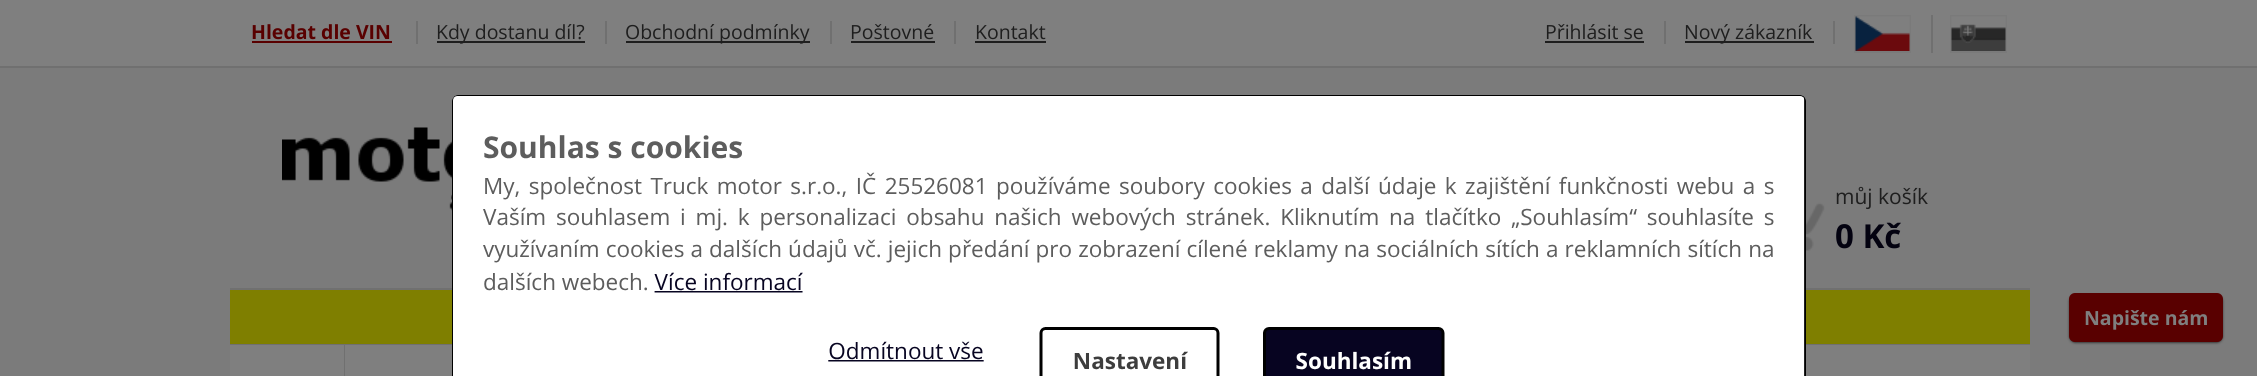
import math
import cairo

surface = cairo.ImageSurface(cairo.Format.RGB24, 2257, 376)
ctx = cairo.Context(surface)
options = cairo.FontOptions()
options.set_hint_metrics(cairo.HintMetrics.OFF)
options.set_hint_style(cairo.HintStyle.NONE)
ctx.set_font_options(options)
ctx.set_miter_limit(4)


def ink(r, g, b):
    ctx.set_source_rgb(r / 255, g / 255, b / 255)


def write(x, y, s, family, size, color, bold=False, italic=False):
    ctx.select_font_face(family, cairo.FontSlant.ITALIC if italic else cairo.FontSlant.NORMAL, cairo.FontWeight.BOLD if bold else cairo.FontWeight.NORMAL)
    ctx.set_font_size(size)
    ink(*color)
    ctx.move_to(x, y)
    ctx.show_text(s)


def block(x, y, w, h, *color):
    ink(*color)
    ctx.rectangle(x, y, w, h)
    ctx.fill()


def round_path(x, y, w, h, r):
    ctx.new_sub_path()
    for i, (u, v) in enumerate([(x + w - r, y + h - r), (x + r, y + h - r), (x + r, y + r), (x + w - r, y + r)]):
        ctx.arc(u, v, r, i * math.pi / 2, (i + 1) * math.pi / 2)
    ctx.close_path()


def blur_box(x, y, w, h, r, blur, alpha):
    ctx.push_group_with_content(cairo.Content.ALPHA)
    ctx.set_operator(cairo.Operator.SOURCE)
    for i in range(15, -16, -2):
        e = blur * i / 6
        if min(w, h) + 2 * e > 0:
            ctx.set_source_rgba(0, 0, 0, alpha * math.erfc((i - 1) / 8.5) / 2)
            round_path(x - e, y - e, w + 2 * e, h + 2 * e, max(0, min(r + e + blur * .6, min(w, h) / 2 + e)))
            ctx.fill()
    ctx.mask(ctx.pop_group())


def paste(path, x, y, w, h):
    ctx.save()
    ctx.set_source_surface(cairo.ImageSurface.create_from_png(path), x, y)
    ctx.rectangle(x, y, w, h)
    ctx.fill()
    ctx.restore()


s1 = dict(family="Open Sans", size=19.5, color=(179, 0, 0), bold=True)
s2 = dict(family="Open Sans", size=19.5, color=(61, 61, 61))
s3 = dict(family="Open Sans", size=21, color=(61, 61, 61))
s4 = dict(family="Open Sans", size=33, color=(7, 4, 33), bold=True)
s5 = dict(family="Open Sans", size=19.5, color=(255, 255, 255), bold=True)

ink(246, 246, 246)
ctx.paint()
block(0, 0, 2257, 66, 255, 255, 255)
block(0, 66, 2257, 2, 224, 224, 224)
block(416, 21, 2, 23, 224, 224, 224)
write(251, 39, "Hledat dle VIN", **s1)
block(252, 41, 140, 2, 179, 0, 0)
block(605, 21, 2, 23, 224, 224, 224)
block(437, 41, 148, 2, 61, 61, 61)
write(436, 39, "Kdy dostanu díl?", **s2)
block(830, 21, 2, 23, 224, 224, 224)
block(626, 41, 184, 2, 61, 61, 61)
write(625, 39, "Obchodní podmínky", **s2)
block(954, 21, 2, 23, 224, 224, 224)
write(850, 39, "Poštovné", **s2)
block(851, 41, 84, 2, 61, 61, 61)
write(975, 39, "Kontakt", **s2)
block(975, 41, 71, 2, 61, 61, 61)
block(1664, 21, 2, 23, 224, 224, 224)
write(1545, 39, "Přihlásit se", **s2)
block(1545, 41, 99, 2, 61, 61, 61)
block(1833, 21, 2, 23, 224, 224, 224)
block(1685, 41, 129, 2, 61, 61, 61)
write(1684, 39, "Nový zákazník", **s2)
block(1931, 15, 2, 38, 224, 224, 224)
ctx.rectangle(1855, 16, 55, 36)
ink(245, 245, 245)
ctx.stroke()
paste("pic2.png", 1855, 16, 55, 35)
ctx.rectangle(1951, 16, 55, 36)
ctx.stroke()
paste("pic3.png", 1951, 16, 55, 35)
block(230, 288, 1800, 2, 224, 224, 224)
paste("pic4.png", 282, 127, 170, 84)
paste("pic5.png", 1806, 202, 19, 49)
write(1835, 204, "můj košík", **s3)
write(1835, 248, "0 Kč", **s4)
block(230, 290, 1800, 54, 255, 255, 0)
block(230, 344, 1800, 1, 224, 224, 224)
block(230, 345, 1800, 31, 255, 255, 255)
block(344, 345, 1, 31, 224, 224, 224)
ink(0, 0, 0)
blur_box(2070, 296, 152, 46, 5, 1.5, 1)
ink(179, 0, 0)
round_path(2069, 293, 154, 49, 6)
ctx.fill()
write(2084, 325, "Napište nám", **s5)
round_path(-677, -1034, 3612, 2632, 1135)
ctx.set_source_rgba(0, 0, 0, 0.5)
ctx.set_line_width(2258)
ctx.stroke()
round_path(453, 96, 1352, 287, 5)
ink(0, 0, 0)
ctx.set_line_width(2)
ctx.stroke()
paste("pic1.png", 453, 96, 1352, 280)
surface.write_to_png("screenshot.png")
